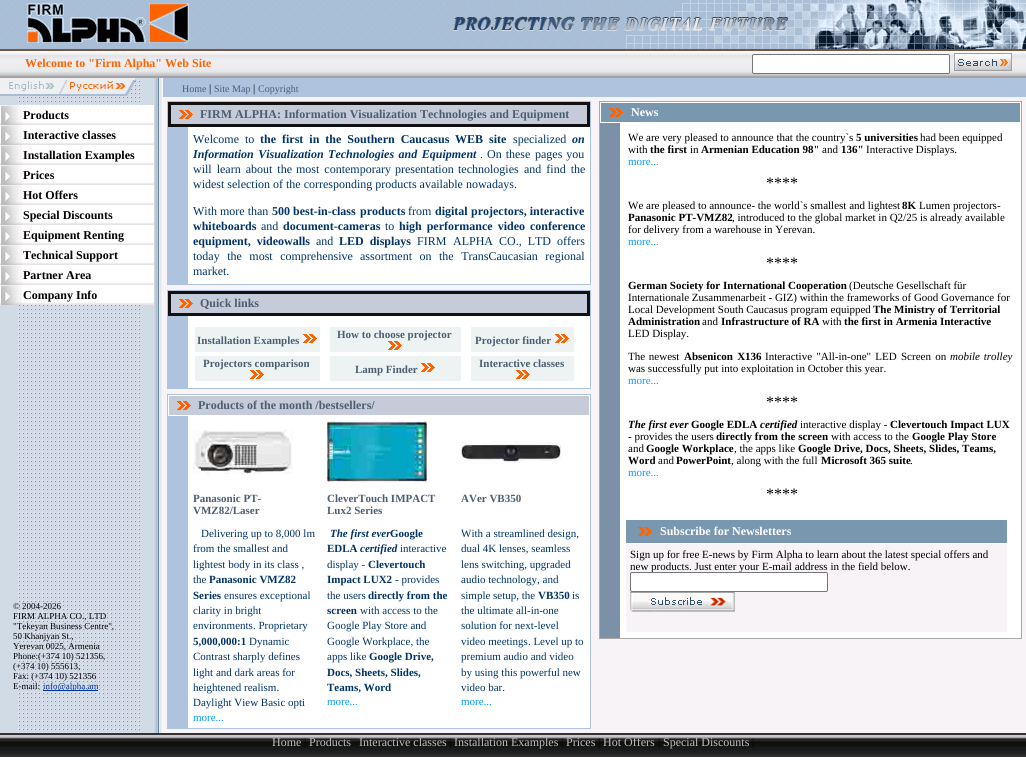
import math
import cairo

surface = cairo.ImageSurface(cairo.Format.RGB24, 1026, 757)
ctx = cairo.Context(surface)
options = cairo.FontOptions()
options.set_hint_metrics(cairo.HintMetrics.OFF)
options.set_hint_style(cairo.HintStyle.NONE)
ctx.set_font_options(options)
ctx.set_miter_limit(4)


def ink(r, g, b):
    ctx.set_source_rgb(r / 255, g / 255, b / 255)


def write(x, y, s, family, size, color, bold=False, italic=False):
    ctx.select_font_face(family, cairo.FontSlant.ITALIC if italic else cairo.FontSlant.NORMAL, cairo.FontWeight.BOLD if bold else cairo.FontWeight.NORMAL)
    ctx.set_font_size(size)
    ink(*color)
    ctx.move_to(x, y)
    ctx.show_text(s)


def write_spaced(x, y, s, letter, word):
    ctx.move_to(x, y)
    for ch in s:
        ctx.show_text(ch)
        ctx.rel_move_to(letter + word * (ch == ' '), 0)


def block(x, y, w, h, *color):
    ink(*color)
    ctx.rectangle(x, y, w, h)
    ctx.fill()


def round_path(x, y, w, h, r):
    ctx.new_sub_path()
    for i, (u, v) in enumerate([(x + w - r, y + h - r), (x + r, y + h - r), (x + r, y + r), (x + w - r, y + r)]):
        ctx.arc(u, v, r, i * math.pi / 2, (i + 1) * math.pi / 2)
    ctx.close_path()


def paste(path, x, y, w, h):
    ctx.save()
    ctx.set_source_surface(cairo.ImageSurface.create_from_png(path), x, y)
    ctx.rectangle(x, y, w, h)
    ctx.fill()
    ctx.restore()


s1 = dict(family="Liberation Serif", size=12, color=(255, 99, 0), bold=True)
s2 = dict(family="Liberation Serif", size=12, color=(0, 0, 0), bold=True)
s3 = dict(family="Liberation Serif", size=9, color=(0, 0, 0))
s4 = dict(family="Liberation Serif", size=9, color=(0, 51, 153))
s5 = dict(family="Liberation Serif", size=10, color=(76, 94, 114))
s6 = dict(family="Liberation Serif", size=11, color=(0, 0, 0))
s7 = dict(family="Liberation Serif", size=12, color=(76, 94, 114), bold=True)
s8 = dict(family="Liberation Serif", size=12, color=(0, 51, 102))
s9 = dict(family="Liberation Serif", size=12, color=(0, 51, 102), bold=True, italic=True)
s10 = dict(family="Liberation Serif", size=12, color=(0, 51, 102), bold=True)
s11 = dict(family="Liberation Serif", size=11, color=(76, 94, 114), bold=True)
s12 = dict(family="Liberation Serif", size=11, color=(0, 51, 102))
s13 = dict(family="Liberation Serif", size=11, color=(0, 51, 102), bold=True)
s14 = dict(family="Liberation Serif", size=11, color=(0, 153, 255))
s15 = dict(family="Liberation Serif", size=11, color=(0, 51, 102), bold=True, italic=True)
s16 = dict(family="Liberation Serif", size=12, color=(255, 255, 255), bold=True)
s17 = dict(family="Liberation Serif", size=11, color=(0, 0, 0), bold=True)
s18 = dict(family="Liberation Serif", size=16, color=(0, 0, 0))
s19 = dict(family="Liberation Serif", size=11, color=(0, 0, 0), bold=True, italic=True)
s20 = dict(family="Liberation Serif", size=12, color=(192, 192, 192))

ink(247, 243, 247)
ctx.paint()
paste("pic1.png", 0, 0, 619, 49)
paste("pic2.png", 27, 3, 162, 40)
paste("pic3.png", 441, 0, 585, 49)
block(0, 49, 1026, 2, 119, 86, 65)
paste("pic4.png", 0, 51, 1026, 25)
write(25, 67, "Welcome to \"Firm Alpha\" Web Site", **s1)
ink(255, 255, 255)
round_path(752.5, 54.5, 197, 19, 1.5)
ctx.fill_preserve()
ink(118, 118, 118)
ctx.set_line_width(1)
ctx.stroke()
paste("pic5.png", 954, 53, 58, 18)
block(0, 76, 1026, 2, 165, 162, 165)
block(0, 78, 154, 655, 209, 219, 229)
paste("pic6.png", 18, 80, 122, 653)
paste("pic7.png", 0, 78, 68, 18)
paste("pic8.png", 68, 78, 68, 18)
paste("pic9.png", 0, 105, 154, 20)
paste("pic10.png", 1, 105, 21, 20)
write(23, 119, "Products", **s2)
paste("pic9.png", 0, 125, 154, 20)
paste("pic10.png", 1, 125, 21, 20)
write(23, 139, "Interactive classes", **s2)
paste("pic9.png", 0, 145, 154, 20)
paste("pic10.png", 1, 145, 21, 20)
write(23, 159, "Installation Examples", **s2)
paste("pic9.png", 0, 165, 154, 20)
paste("pic10.png", 1, 165, 21, 20)
write(23, 179, "Prices", **s2)
paste("pic9.png", 0, 185, 154, 20)
paste("pic10.png", 1, 185, 21, 20)
write(23, 199, "Hot Offers", **s2)
paste("pic9.png", 0, 205, 154, 20)
paste("pic10.png", 1, 205, 21, 20)
write(23, 219, "Special Discounts", **s2)
paste("pic9.png", 0, 225, 154, 20)
paste("pic10.png", 1, 225, 21, 20)
write(23, 239, "Equipment Renting", **s2)
paste("pic9.png", 0, 245, 154, 20)
paste("pic10.png", 1, 245, 21, 20)
write(23, 259, "Technical Support", **s2)
paste("pic9.png", 0, 265, 154, 20)
paste("pic10.png", 1, 265, 21, 20)
write(23, 279, "Partner Area", **s2)
paste("pic9.png", 0, 285, 154, 20)
paste("pic10.png", 1, 285, 21, 20)
write(23, 299, "Company Info", **s2)
write(13, 609, "© 2004-2026", **s3)
write(13, 619, "FIRM ALPHA CO., LTD", **s3)
write(13, 629, "\"Tekeyan Business Centre\",", **s3)
write(13, 639, "50 Khanjyan St.,", **s3)
write(13, 649, "Yerevan 0025, Armenia", **s3)
write(13, 659, "Phone:(+374 10) 521356,", **s3)
write(13, 669, "(+374 10) 555613,", **s3)
write(13, 679, "Fax: (+374 10) 521356", **s3)
write(13, 689, "E-mail:", **s3)
block(43, 690, 55, 1, 0, 51, 153)
write(43, 689, "info@alpha.am", **s4)
paste("pic11.png", 154, 78, 9, 655)
block(163, 78, 863, 19, 173, 195, 222)
write(182, 92, "Home", **s5)
write(209, 92, "|", **s6)
write(214, 92, "Site Map", **s5)
write(253, 92, "|", **s6)
write(258, 92, "Copyright", **s5)
block(188, 127, 402, 157, 255, 255, 255)
block(167, 101, 424, 1, 173, 195, 222)
block(590, 101, 1, 184, 173, 195, 222)
block(167, 284, 424, 1, 173, 195, 222)
block(167, 101, 1, 184, 173, 195, 222)
block(168, 102, 422, 3, 17, 17, 17)
block(587, 102, 3, 25, 17, 17, 17)
block(168, 124, 422, 3, 17, 17, 17)
block(168, 102, 3, 25, 17, 17, 17)
block(171, 105, 416, 19, 197, 203, 216)
paste("pic12.png", 179, 110, 14, 9)
write(200, 118, "FIRM ALPHA: Information Visualization Technologies and Equipment", **s7)
block(168, 127, 20, 157, 173, 195, 222)
ctx.select_font_face("Liberation Serif")
ink(0, 51, 102)
write_spaced(193, 143, "Welcome to", 0, 3)
ctx.select_font_face("Liberation Serif", cairo.FontSlant.NORMAL, cairo.FontWeight.BOLD)
write_spaced(260, 143, "the first in the Southern Caucasus", 0, 3)
write_spaced(455, 143, "WEB site", 0, 3)
write(513, 143, "specialized", **s8)
write(572, 143, "on", **s9)
write_spaced(193, 158, "Information Visualization Technologies and Equipment", 0, 1.5)
write(480, 158, ".", **s8)
write_spaced(487, 158, "On these", 0, 1)
write_spaced(535, 158, "pages you", 0, 1)
write_spaced(193, 173, "will learn about the", 0, 2)
write_spaced(296, 173, "most contemporary", 0, 2)
write(395, 173, "presentation", **s8)
write(458, 173, "technologies", **s8)
write_spaced(524, 173, "and find the", 0, 2)
write(193, 188, "widest selection of the corresponding products available nowadays.", **s8)
write(193, 215, "With more than", **s8)
write(272, 215, "500 best-in-class", **s10)
write(360, 215, "products", **s10)
write(408, 215, "from", **s8)
write(435, 215, "digital", **s10)
write(471, 215, "projectors, interactive", **s10)
write(193, 230, "whiteboards", **s10)
write(261, 230, "and", **s8)
write(283, 230, "document-cameras", **s10)
write(385, 230, "to", **s8)
ctx.select_font_face("Liberation Serif", cairo.FontSlant.NORMAL, cairo.FontWeight.BOLD)
write_spaced(399, 230, "high performance video conference", 0, 2)
write_spaced(193, 245, "equipment, videowalls", 0, 3)
write(316, 245, "and", **s8)
ctx.select_font_face("Liberation Serif", cairo.FontSlant.NORMAL, cairo.FontWeight.BOLD)
write_spaced(339, 245, "LED displays", 0, 3)
write(417, 245, "FIRM", **s8)
write_spaced(453, 245, "ALPHA CO., LTD", 0, 3)
write(557, 245, "offers", **s8)
write_spaced(193, 260, "today the most comprehensive", 0, 4.5)
write_spaced(360, 260, "assortment on the TransCaucasian regional", 0, 4.5)
write(193, 275, "market.", **s8)
block(188, 316, 402, 72, 255, 255, 255)
block(167, 290, 424, 1, 173, 195, 222)
block(590, 290, 1, 99, 173, 195, 222)
block(167, 388, 424, 1, 173, 195, 222)
block(167, 290, 1, 99, 173, 195, 222)
block(168, 291, 422, 3, 17, 17, 17)
block(587, 291, 3, 25, 17, 17, 17)
block(168, 313, 422, 3, 17, 17, 17)
block(168, 291, 3, 25, 17, 17, 17)
block(171, 294, 416, 19, 197, 203, 216)
paste("pic12.png", 179, 299, 14, 9)
write(200, 307, "Quick links", **s7)
block(168, 316, 20, 72, 173, 195, 222)
block(195, 327, 125, 25, 237, 243, 243)
write(197, 344, "Installation Examples", **s11)
paste("pic13.png", 303, 334, 14, 9)
block(330, 327, 131, 25, 237, 243, 243)
write(337, 338, "How to choose projector", **s11)
paste("pic13.png", 388, 341, 14, 9)
block(471, 327, 103, 25, 237, 243, 243)
write(475, 344, "Projector finder", **s11)
paste("pic13.png", 555, 334, 14, 9)
block(195, 356, 125, 25, 237, 243, 243)
write(203, 367, "Projectors comparison", **s11)
paste("pic13.png", 250, 370, 14, 9)
block(471, 356, 103, 25, 237, 243, 243)
write(479, 367, "Interactive classes", **s11)
paste("pic13.png", 516, 370, 14, 9)
block(330, 356, 131, 25, 237, 243, 243)
write(355, 373, "Lamp Finder", **s11)
paste("pic13.png", 421, 363, 14, 9)
ink(255, 255, 255)
ctx.rectangle(167.5, 394.5, 423, 334)
ctx.fill_preserve()
ink(173, 195, 222)
ctx.stroke()
block(169, 396, 420, 19, 197, 203, 216)
paste("pic12.png", 177, 401, 14, 9)
write(198, 409, "Products of the month /bestsellers/", **s7)
block(168, 416, 20, 312, 173, 195, 222)
paste("pic14.png", 193, 430, 100, 44)
paste("pic15.png", 327, 421, 100, 61)
paste("pic16.png", 461, 442, 100, 22)
write(193, 502, "Panasonic PT-", **s11)
write(193, 514, "VMZ82/Laser", **s11)
write(327, 502, "CleverTouch IMPACT", **s11)
write(327, 514, "Lux2 Series", **s11)
write(461, 502, "AVer VB350", **s11)
write(201, 537, "Delivering up to 8,000 lm", **s12)
write(193, 552, "from the smallest and", **s12)
write(193, 568, "lightest body in its class ,", **s12)
write(193, 583, "the", **s12)
write(209, 583, "Panasonic VMZ82", **s13)
write(193, 599, "Series", **s13)
write(224, 599, "ensures exceptional", **s12)
write(193, 614, "clarity in bright", **s12)
write(193, 629, "environments. Proprietary", **s12)
write(193, 645, "5,000,000:1", **s13)
write(249, 645, "Dynamic", **s12)
write(193, 660, "Contrast sharply defines", **s12)
write(193, 676, "light and dark areas for", **s12)
write(193, 691, "heightened realism.", **s12)
write(193, 706, "Daylight View Basic opti", **s12)
write(193, 721, "more...", **s14)
write(330, 537, "The first ever", **s15)
write(390, 537, "Google", **s13)
write(327, 552, "EDLA", **s13)
write(360, 552, "certified", **s15)
write(400, 552, "interactive", **s12)
write(327, 568, "display -", **s12)
write(368, 568, "Clevertouch", **s13)
write(327, 583, "Impact LUX2", **s13)
write(395, 583, "- provides", **s12)
write(327, 599, "the users", **s12)
write(368, 599, "directly from the", **s13)
write(327, 614, "screen", **s13)
write(360, 614, "with access to the", **s12)
write(327, 629, "Google Play Store and", **s12)
write(327, 645, "Google Workplace, the", **s12)
write(327, 660, "apps like", **s12)
write(369, 660, "Google Drive,", **s13)
write(327, 676, "Docs, Sheets, Slides,", **s13)
write(327, 691, "Teams, Word", **s13)
write(327, 705, "more...", **s14)
write(461, 537, "With a streamlined design,", **s12)
write(461, 552, "dual 4K lenses, seamless", **s12)
write(461, 568, "lens switching, upgraded", **s12)
write(461, 583, "audio technology, and", **s12)
write(461, 599, "simple setup, the", **s12)
write(538, 599, "VB350", **s13)
write(572, 599, "is", **s12)
write(461, 614, "the ultimate all-in-one", **s12)
write(461, 629, "solution for next-level", **s12)
write(461, 645, "video meetings. Level up to", **s12)
write(461, 660, "premium audio and video", **s12)
write(461, 676, "by using this powerful new", **s12)
write(461, 691, "video bar.", **s12)
write(461, 705, "more...", **s14)
block(601, 102, 420, 536, 255, 255, 255)
block(599, 101, 423, 1, 169, 169, 169)
block(1021, 101, 1, 538, 169, 169, 169)
block(599, 638, 423, 1, 169, 169, 169)
block(599, 101, 1, 538, 169, 169, 169)
block(601, 103, 419, 19, 122, 151, 176)
block(600, 102, 1, 21, 255, 255, 255)
paste("pic17.png", 609, 108, 14, 9)
write(631, 116, "News", **s16)
block(600, 123, 20, 515, 123, 145, 168)
write(628, 141, "We are very pleased to announce that the country`s", **s6)
write(856, 141, "5 universities", **s17)
write(920, 141, "had been equipped", **s6)
write(628, 153, "with", **s6)
write(650, 153, "the first", **s17)
write(690, 153, "in", **s6)
write(701, 153, "Armenian Education 98\"", **s17)
write(822, 153, "and", **s6)
write(841, 153, "136\"", **s17)
write(866, 153, "Interactive Displays.", **s6)
write(628, 165, "more...", **s14)
write(766, 188, "****", **s18)
write(628, 209, "We are pleased to announce- the world`s smallest and lightest", **s6)
write(902, 209, "8K", **s17)
write(919, 209, "Lumen projectors-", **s6)
write(628, 221, "Panasonic PT-VMZ82", **s17)
write(732, 221, ", introduced to the global market in Q2/25 is already available", **s6)
write(628, 233, "for delivery from a warehouse in Yerevan.", **s6)
write(628, 245, "more...", **s14)
write(766, 268, "****", **s18)
write(628, 289, "German Society for International Cooperation", **s17)
write(849, 289, "(Deutsche Gesellschaft für", **s6)
write(628, 301, "Internationale Zusammenarbeit - GIZ) within the frameworks of Good Governance for", **s6)
write(628, 313, "Local Development South Caucasus program equipped", **s6)
write(873, 313, "The Ministry of Territorial", **s17)
write(628, 325, "Administration", **s17)
write(702, 325, "and", **s6)
write(721, 325, "Infrastructure of RA", **s17)
write(822, 325, "with", **s6)
write(844, 325, "the first in Armenia Interactive", **s17)
write(628, 337, "LED Display.", **s6)
write_spaced(628, 360, "The newest", 0, 1)
ctx.select_font_face("Liberation Serif", cairo.FontSlant.NORMAL, cairo.FontWeight.BOLD)
write_spaced(684, 360, "Absenicon X136", 0, 1.5)
ctx.select_font_face("Liberation Serif")
write_spaced(765, 360, "Interactive \"All-in-one\" LED Screen on", 0, 1.5)
ctx.select_font_face("Liberation Serif", cairo.FontSlant.ITALIC)
write_spaced(950, 360, "mobile trolley", 0, 1)
write(628, 372, "was successfully put into exploitation in October this year.", **s6)
write(628, 384, "more...", **s14)
write(766, 407, "****", **s18)
write(628, 428, "The first ever", **s19)
write(691, 428, "Google EDLA", **s17)
write(760, 428, "certified", **s19)
write(800, 428, "interactive display -", **s6)
write(890, 428, "Clevertouch Impact LUX", **s17)
write(628, 440, "- provides the users", **s6)
write(716, 440, "directly from the screen", **s17)
write(831, 440, "with access to the", **s6)
write(912, 440, "Google Play Store", **s17)
write(628, 452, "and", **s6)
write(646, 452, "Google Workplace", **s17)
write(734, 452, ", the apps like", **s6)
write(798, 452, "Google Drive, Docs, Sheets, Slides, Teams,", **s17)
write(628, 464, "Word", **s17)
write(658, 464, "and", **s6)
write(676, 464, "PowerPoint", **s17)
write(731, 464, ", along with the full", **s6)
write(821, 464, "Microsoft 365 suite", **s17)
write(910, 464, ".", **s6)
write(628, 476, "more...", **s14)
write(766, 499, "****", **s18)
block(626, 520, 381, 23, 122, 151, 176)
paste("pic17.png", 638, 527, 14, 9)
write(660, 535, "Subscribe for Newsletters", **s16)
block(626, 544, 381, 88, 247, 243, 247)
write(630, 558, "Sign up for free E-news by Firm Alpha to learn about the latest special offers and", **s6)
write(630, 570, "new products. Just enter your E-mail address in the field below.", **s6)
ink(255, 255, 255)
round_path(630.5, 572.5, 197, 19, 1.5)
ctx.fill_preserve()
ink(118, 118, 118)
ctx.stroke()
paste("pic18.png", 630, 592, 105, 20)
block(0, 733, 1026, 2, 51, 51, 51)
paste("pic19.png", 0, 735, 1026, 22)
write(272, 746, "Home", **s20)
write(304, 746, "|", **s6)
write(309, 746, "Products", **s20)
write(359, 746, "Interactive classes", **s20)
write(449, 746, "|", **s6)
write(454, 746, "Installation Examples", **s20)
write(561, 746, "|", **s6)
write(566, 746, "Prices", **s20)
write(598, 746, "|", **s6)
write(603, 746, "Hot Offers", **s20)
write(658, 746, "|", **s6)
write(663, 746, "Special Discounts", **s20)
write(752, 746, "|", **s6)
surface.write_to_png("screenshot.png")
